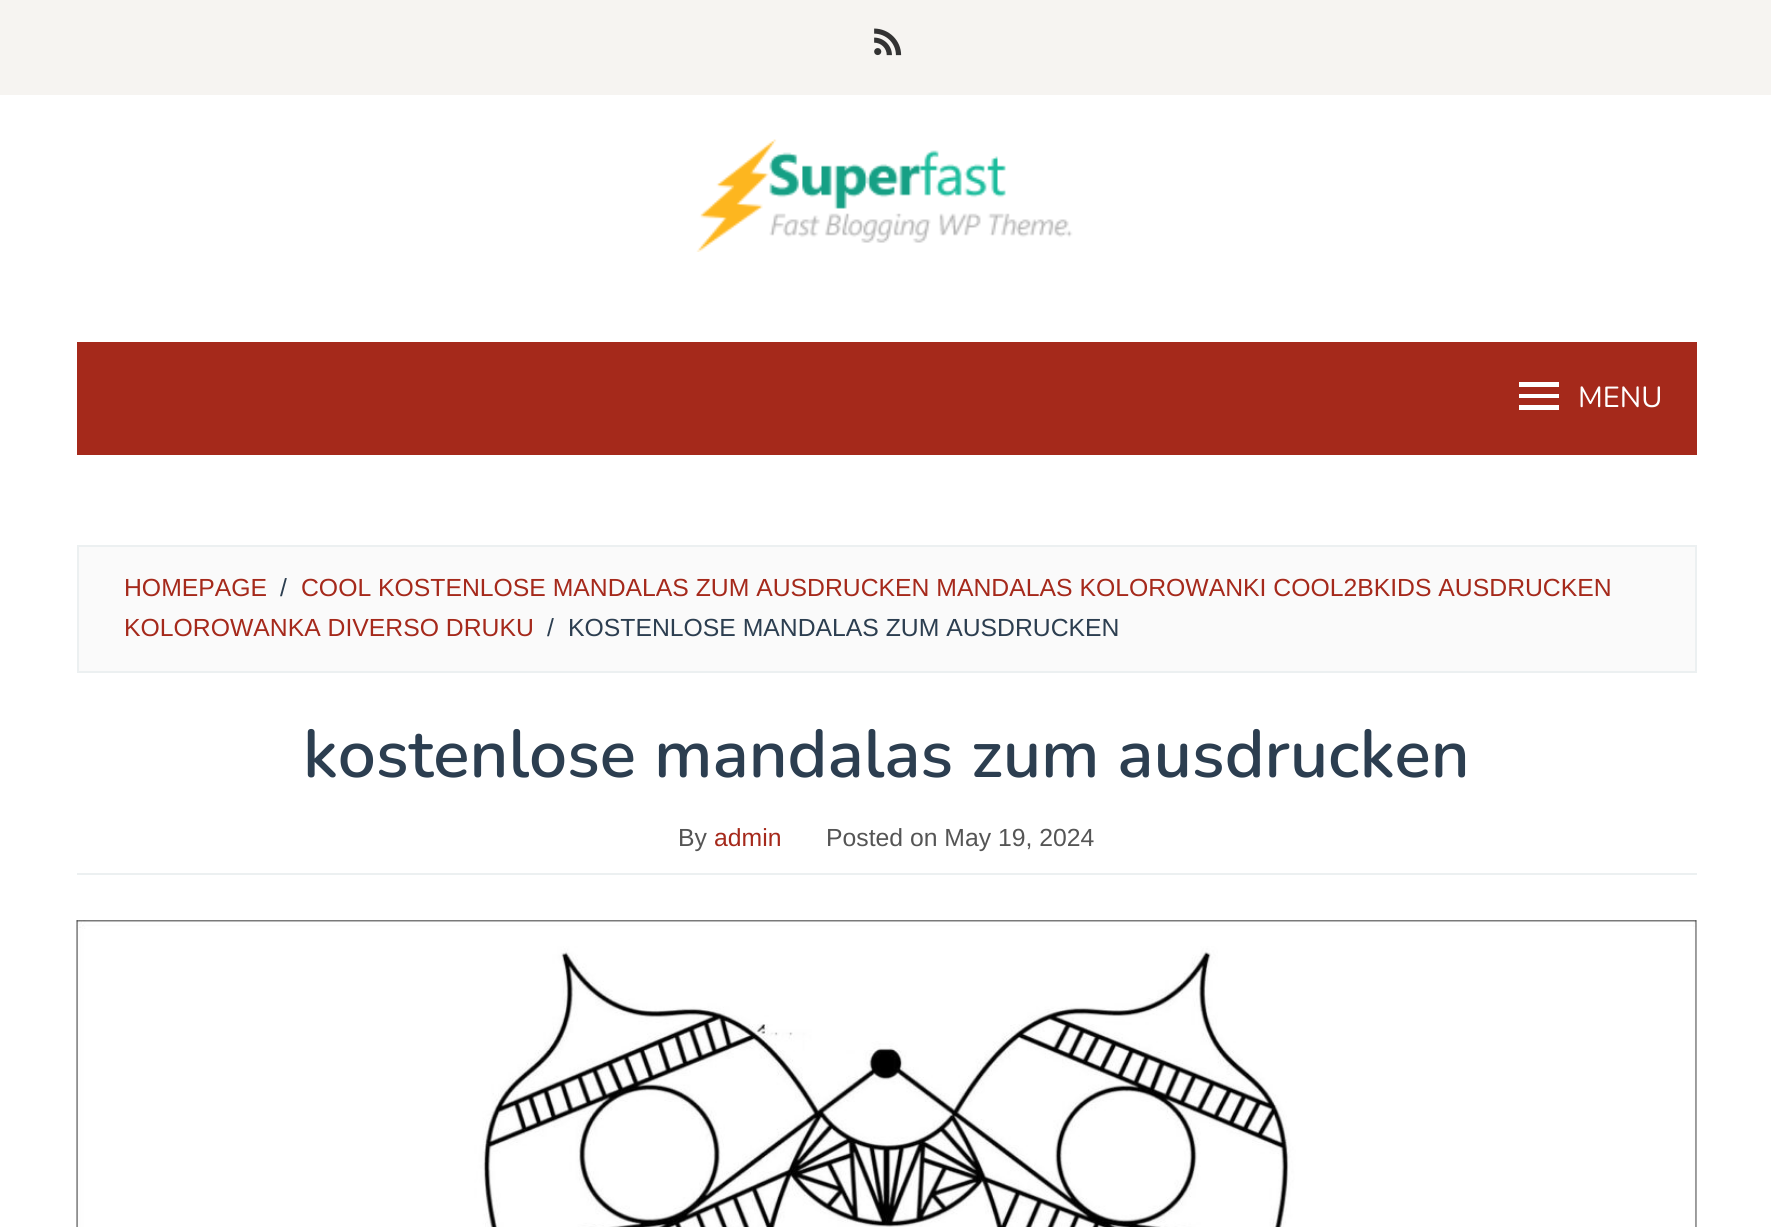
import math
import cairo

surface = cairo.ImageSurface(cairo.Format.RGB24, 1771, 1227)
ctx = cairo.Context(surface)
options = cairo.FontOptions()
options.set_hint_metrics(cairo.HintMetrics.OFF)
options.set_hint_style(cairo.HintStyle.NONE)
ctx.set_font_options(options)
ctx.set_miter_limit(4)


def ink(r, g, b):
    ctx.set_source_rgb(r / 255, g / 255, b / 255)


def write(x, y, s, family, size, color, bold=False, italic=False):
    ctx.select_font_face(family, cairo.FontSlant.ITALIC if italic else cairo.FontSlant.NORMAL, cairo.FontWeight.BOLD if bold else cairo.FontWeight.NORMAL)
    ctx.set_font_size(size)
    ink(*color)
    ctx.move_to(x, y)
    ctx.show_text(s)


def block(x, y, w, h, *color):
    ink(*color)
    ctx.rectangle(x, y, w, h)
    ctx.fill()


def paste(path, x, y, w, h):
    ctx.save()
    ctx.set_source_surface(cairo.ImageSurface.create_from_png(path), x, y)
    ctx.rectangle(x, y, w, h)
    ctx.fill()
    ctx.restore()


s1 = dict(family="Nunito", size=29, color=(255, 255, 255))
s2 = dict(family="Liberation Sans", size=24.75, color=(165, 41, 27))
s3 = dict(family="Liberation Sans", size=24.75, color=(44, 62, 80))
s4 = dict(family="Nunito SemiBold", size=67.5, color=(44, 62, 80))
s5 = dict(family="Liberation Sans", size=24.75, color=(85, 85, 85))

ink(255, 255, 255)
ctx.paint()
block(0, 0, 1771, 95, 246, 244, 241)
paste("pic1.png", 874, 28, 28, 28)
paste("pic2.png", 696, 139, 377, 113)
block(77, 342, 1620, 113, 165, 41, 27)
ink(255, 255, 255)
ctx.new_path()
ctx.move_to(1519, 410)
ctx.line_to(1559, 410)
ctx.line_to(1559, 405)
ctx.line_to(1519, 405)
ctx.close_path()
ctx.move_to(1519, 398)
ctx.line_to(1559, 398)
ctx.line_to(1559, 394)
ctx.line_to(1519, 394)
ctx.close_path()
ctx.move_to(1519, 382)
ctx.line_to(1519, 387)
ctx.line_to(1559, 387)
ctx.line_to(1559, 382)
ctx.close_path()
ctx.fill()
write(1578, 407, "MENU", **s1)
ink(250, 250, 250)
ctx.rectangle(78, 546, 1618, 126)
ctx.fill_preserve()
ink(236, 240, 241)
ctx.stroke()
write(124, 596, "HOMEPAGE", **s2)
write(280, 596, "/", **s3)
write(301, 596, "COOL KOSTENLOSE MANDALAS ZUM AUSDRUCKEN MANDALAS KOLOROWANKI COOL2BKIDS AUSDRUCKEN", **s2)
write(124, 636, "KOLOROWANKA DIVERSO DRUKU", **s2)
write(547, 636, "/", **s3)
write(568, 636, "KOSTENLOSE MANDALAS ZUM AUSDRUCKEN", **s3)
block(77, 873, 1620, 2, 236, 240, 241)
write(303, 777, "kostenlose mandalas zum ausdrucken", **s4)
write(678, 846, "By", **s5)
write(714, 846, "admin", **s2)
write(826, 846, "Posted on May 19, 2024", **s5)
paste("pic3.png", 76, 920, 1621, 307)
surface.write_to_png("screenshot.png")
